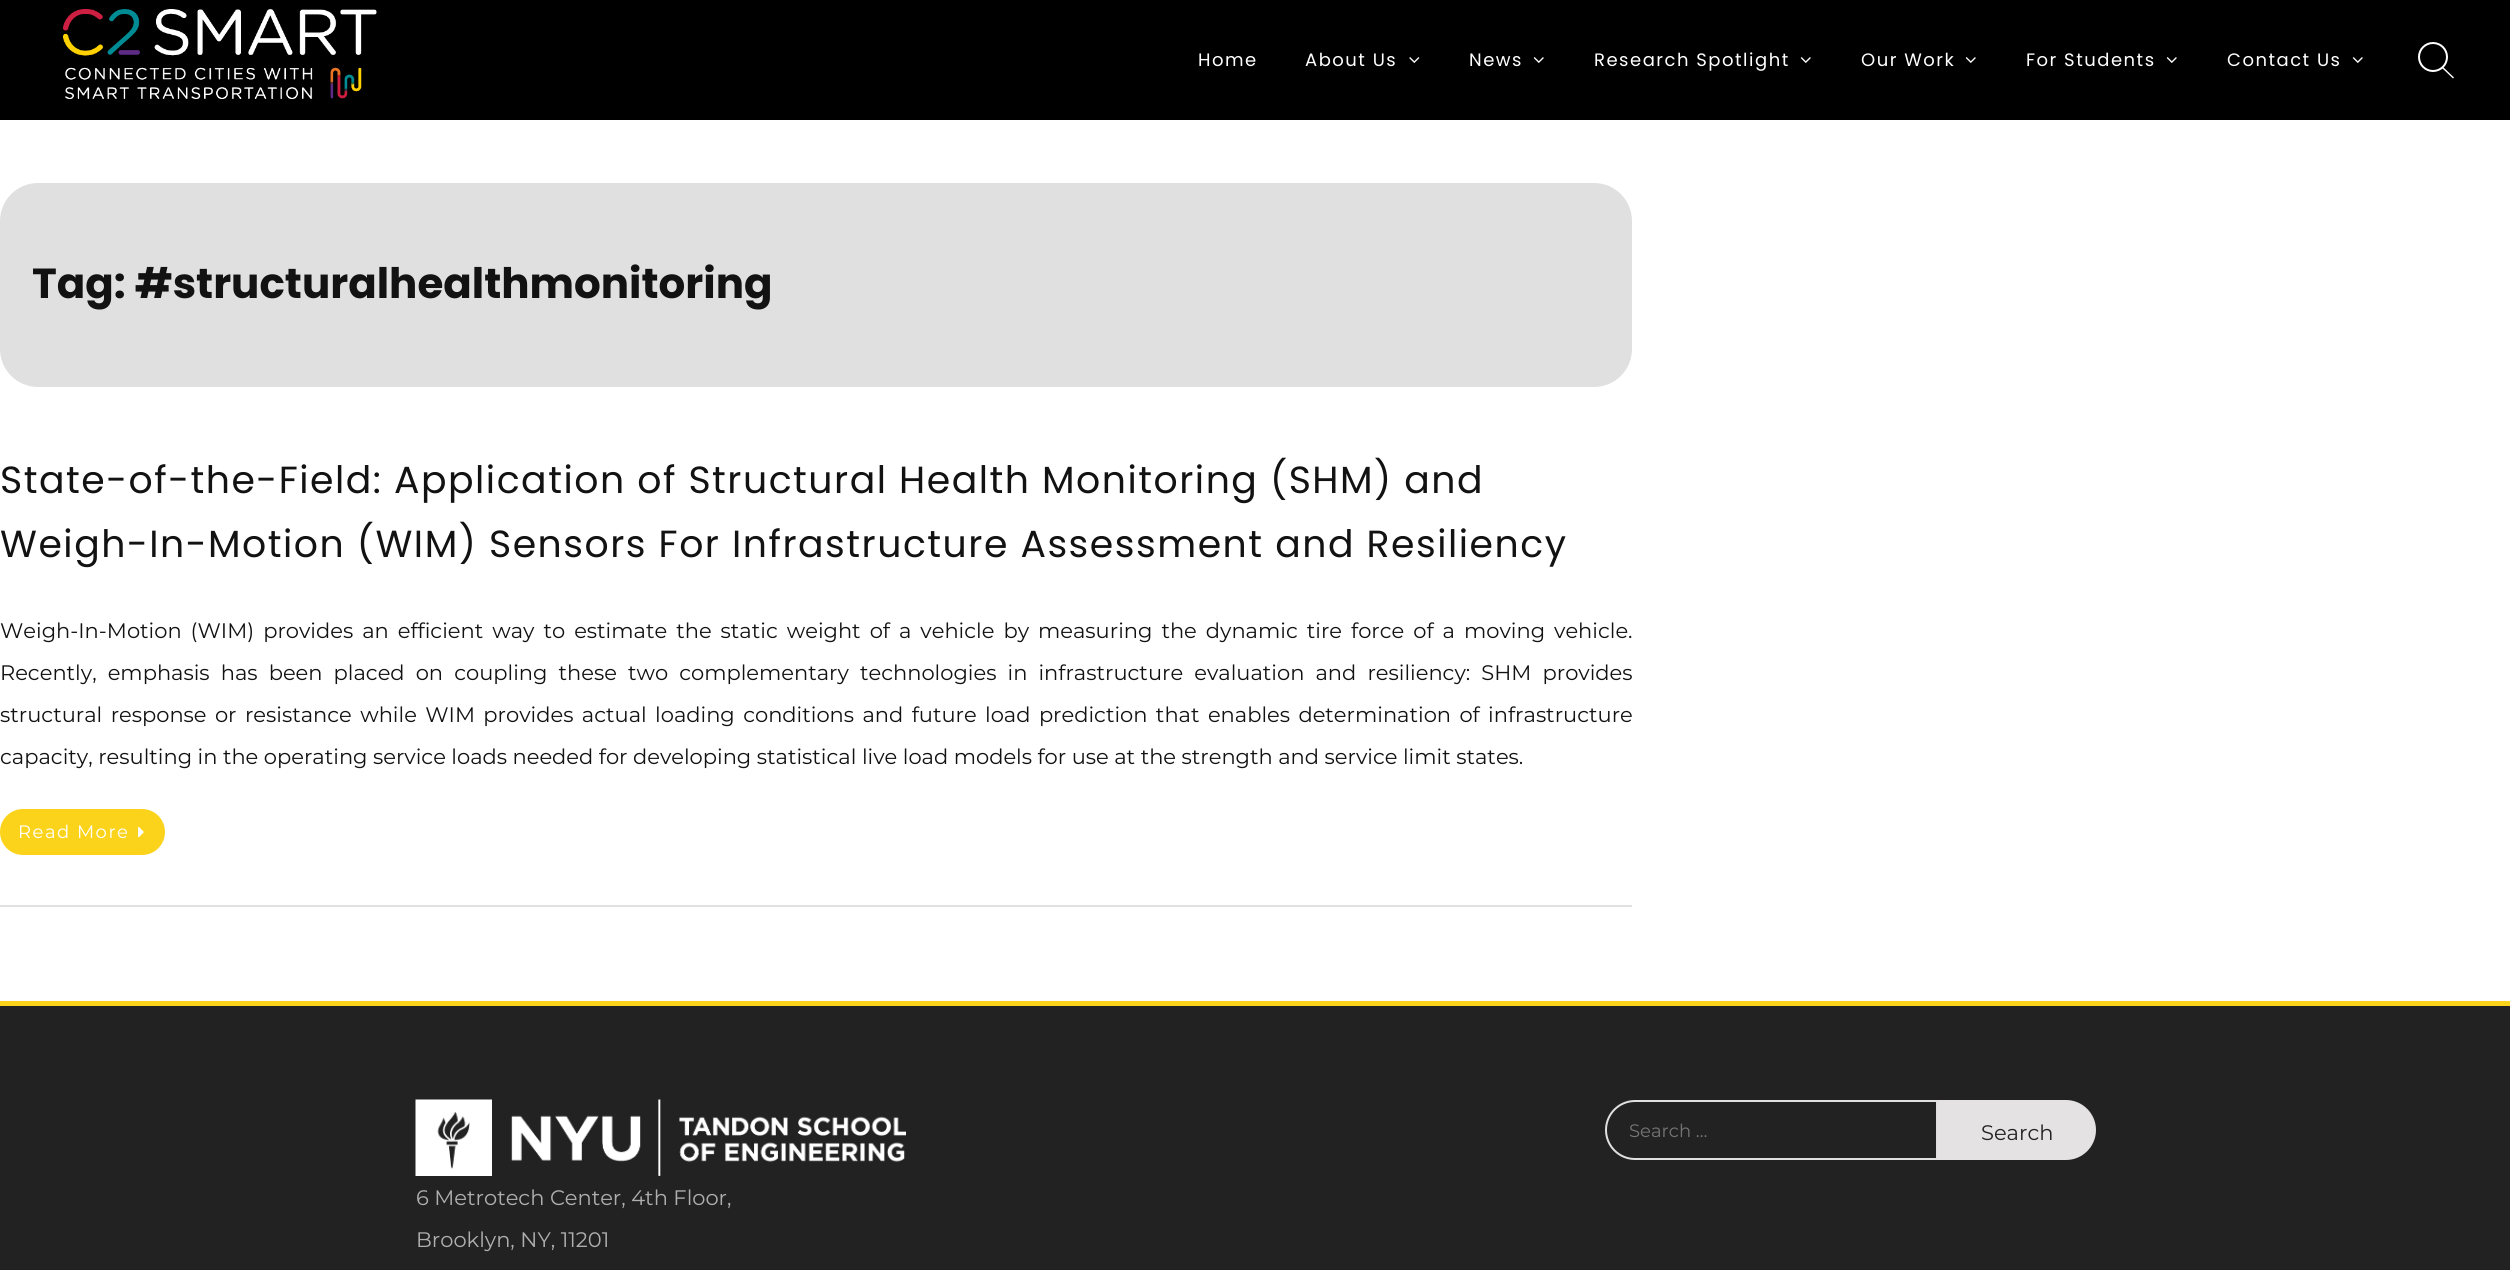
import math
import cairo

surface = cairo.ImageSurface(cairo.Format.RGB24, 2510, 1270)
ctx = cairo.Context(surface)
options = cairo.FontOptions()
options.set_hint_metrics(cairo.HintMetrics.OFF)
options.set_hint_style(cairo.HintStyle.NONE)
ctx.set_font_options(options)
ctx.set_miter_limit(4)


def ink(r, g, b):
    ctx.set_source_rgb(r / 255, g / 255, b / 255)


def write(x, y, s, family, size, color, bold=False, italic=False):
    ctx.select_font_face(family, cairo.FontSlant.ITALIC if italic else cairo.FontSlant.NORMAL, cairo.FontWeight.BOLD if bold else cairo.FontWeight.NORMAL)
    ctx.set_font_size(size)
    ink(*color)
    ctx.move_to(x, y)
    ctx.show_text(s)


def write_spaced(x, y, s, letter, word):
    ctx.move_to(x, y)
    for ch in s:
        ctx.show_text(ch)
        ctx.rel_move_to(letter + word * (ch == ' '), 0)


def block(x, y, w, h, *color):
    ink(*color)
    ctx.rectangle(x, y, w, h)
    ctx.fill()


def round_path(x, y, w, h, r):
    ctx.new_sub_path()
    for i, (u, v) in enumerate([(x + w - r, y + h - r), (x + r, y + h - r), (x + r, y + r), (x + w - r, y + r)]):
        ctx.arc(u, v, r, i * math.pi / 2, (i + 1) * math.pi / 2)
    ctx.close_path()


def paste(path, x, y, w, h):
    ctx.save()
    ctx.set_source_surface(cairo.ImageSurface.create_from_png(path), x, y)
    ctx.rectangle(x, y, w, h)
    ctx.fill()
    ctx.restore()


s1 = dict(family="Poppins", size=42, color=(18, 18, 18), bold=True)
s2 = dict(family="Montserrat", size=21, color=(18, 18, 18))
s3 = dict(family="Montserrat", size=18, color=(117, 117, 117))
s4 = dict(family="Montserrat", size=21, color=(34, 34, 34))
s5 = dict(family="Montserrat", size=21, color=(175, 175, 175))

ink(255, 255, 255)
ctx.paint()
block(0, 0, 2510, 120, 0, 0, 0)
paste("pic1.png", 63, 9, 314, 90)
ctx.select_font_face("Poppins")
ctx.set_font_size(18)
ink(255, 255, 255)
write_spaced(1198, 66, "Home", 1.5, 0)
write_spaced(1305, 66, "About Us", 1.5, 0)
paste("pic2.png", 1409, 57, 11, 6)
write_spaced(1469, 66, "News", 1.5, 0)
paste("pic3.png", 1533, 57, 11, 6)
write_spaced(1594, 66, "Research Spotlight", 1.5, 0)
paste("pic3.png", 1800, 57, 11, 6)
write_spaced(1861, 66, "Our Work", 1.5, 0)
paste("pic3.png", 1965, 57, 11, 6)
write_spaced(2026, 66, "For Students", 1.5, 0)
paste("pic3.png", 2166, 57, 11, 6)
write_spaced(2227, 66, "Contact Us", 1.5, 0)
paste("pic3.png", 2352, 57, 11, 6)
ctx.arc(2433, 57, 14, 0, 2 * math.pi)
ctx.stroke()
ctx.new_path()
ctx.move_to(2443, 67)
ctx.line_to(2454, 77.5)
ctx.line_to(2453, 78.5)
ctx.line_to(2442, 68)
ctx.close_path()
ctx.fill()
ink(224, 224, 224)
round_path(0, 183, 1632, 204, 38)
ctx.fill()
write(32, 298, "Tag: #structuralhealthmonitoring", **s1)
block(0, 905, 1632, 2, 224, 224, 224)
ctx.select_font_face("Poppins")
ctx.set_font_size(37.8)
ink(18, 18, 18)
write_spaced(0, 493, "State-of-the-Field: Application of Structural Health Monitoring (SHM) and", 1.5, 0)
write_spaced(0, 557, "Weigh-In-Motion (WIM) Sensors For Infrastructure Assessment and Resiliency", 1.5, 0)
ctx.select_font_face("Montserrat")
ctx.set_font_size(21)
write_spaced(0, 638, "Weigh-In-Motion (WIM) provides an efficient way to estimate the static weight of a vehicle by measuring the dynamic tire force of a moving vehicle.", 0, 3.5)
write_spaced(0, 680, "Recently, emphasis has been placed on coupling these two complementary technologies in infrastructure evaluation and resiliency: SHM provides", 0, 5.6)
write_spaced(0, 722, "structural response or resistance while WIM provides actual loading conditions and future load prediction that enables determination of infrastructure", 0, 2.9)
write(0, 764, "capacity, resulting in the operating service loads needed for developing statistical live load models for use at the strength and service limit states.", **s2)
ink(252, 211, 27)
round_path(0, 809, 165, 46, 23)
ctx.fill()
ctx.set_font_size(18)
ink(255, 255, 255)
write_spaced(18, 838, "Read More", 1.5, 0)
paste("pic4.png", 138, 827, 6, 11)
block(0, 1006, 2510, 264, 34, 34, 34)
block(0, 1001, 2510, 5, 252, 211, 27)
ctx.new_path()
ctx.move_to(1635, 1101)
ctx.line_to(1937, 1101)
ctx.line_to(1937, 1159)
ctx.line_to(1635, 1159)
ctx.curve_to(1619, 1159, 1606, 1146, 1606, 1130)
ctx.curve_to(1606, 1114, 1619, 1101, 1635, 1101)
ctx.close_path()
ink(224, 224, 224)
ctx.stroke()
write(1629, 1137, "Search …", **s3)
ink(228, 226, 226)
ctx.new_path()
ctx.move_to(1938, 1100)
ctx.line_to(2066, 1100)
ctx.curve_to(2082.5, 1100, 2096, 1113.5, 2096, 1130)
ctx.curve_to(2096, 1146.5, 2082.5, 1160, 2066, 1160)
ctx.line_to(1938, 1160)
ctx.close_path()
ctx.fill()
write(1981, 1140, "Search", **s4)
paste("pic5.png", 415, 1099, 491, 77)
write(416, 1205, "6 Metrotech Center, 4th Floor,", **s5)
write(416, 1247, "Brooklyn, NY, 11201", **s5)
surface.write_to_png("screenshot.png")
